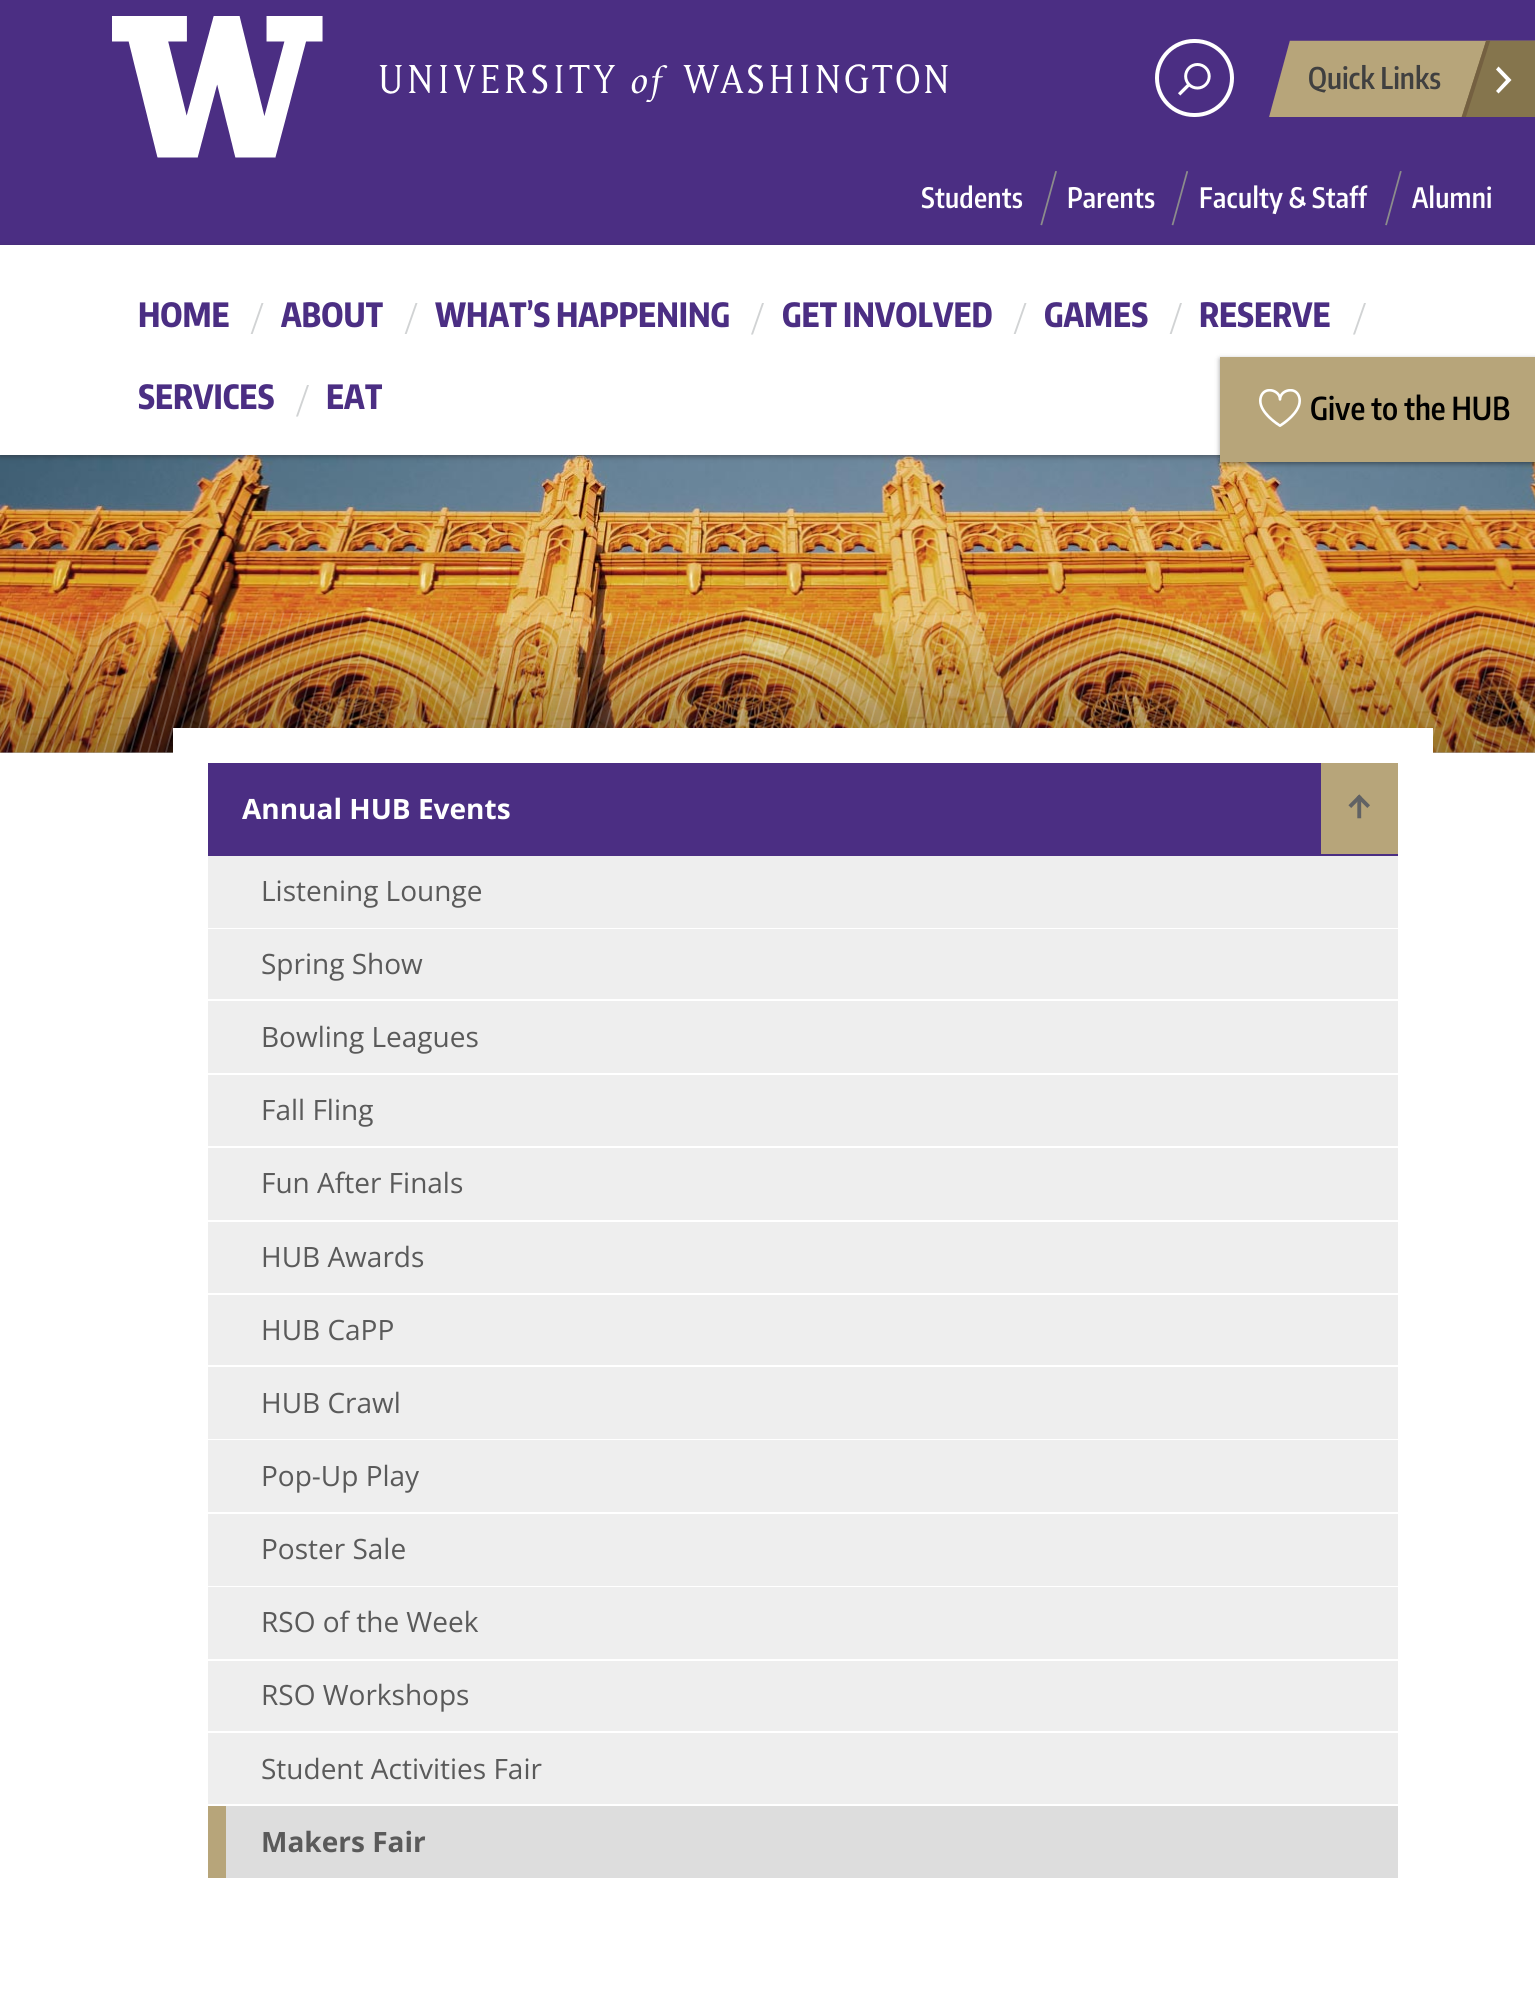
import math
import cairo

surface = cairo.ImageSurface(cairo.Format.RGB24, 1535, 1992)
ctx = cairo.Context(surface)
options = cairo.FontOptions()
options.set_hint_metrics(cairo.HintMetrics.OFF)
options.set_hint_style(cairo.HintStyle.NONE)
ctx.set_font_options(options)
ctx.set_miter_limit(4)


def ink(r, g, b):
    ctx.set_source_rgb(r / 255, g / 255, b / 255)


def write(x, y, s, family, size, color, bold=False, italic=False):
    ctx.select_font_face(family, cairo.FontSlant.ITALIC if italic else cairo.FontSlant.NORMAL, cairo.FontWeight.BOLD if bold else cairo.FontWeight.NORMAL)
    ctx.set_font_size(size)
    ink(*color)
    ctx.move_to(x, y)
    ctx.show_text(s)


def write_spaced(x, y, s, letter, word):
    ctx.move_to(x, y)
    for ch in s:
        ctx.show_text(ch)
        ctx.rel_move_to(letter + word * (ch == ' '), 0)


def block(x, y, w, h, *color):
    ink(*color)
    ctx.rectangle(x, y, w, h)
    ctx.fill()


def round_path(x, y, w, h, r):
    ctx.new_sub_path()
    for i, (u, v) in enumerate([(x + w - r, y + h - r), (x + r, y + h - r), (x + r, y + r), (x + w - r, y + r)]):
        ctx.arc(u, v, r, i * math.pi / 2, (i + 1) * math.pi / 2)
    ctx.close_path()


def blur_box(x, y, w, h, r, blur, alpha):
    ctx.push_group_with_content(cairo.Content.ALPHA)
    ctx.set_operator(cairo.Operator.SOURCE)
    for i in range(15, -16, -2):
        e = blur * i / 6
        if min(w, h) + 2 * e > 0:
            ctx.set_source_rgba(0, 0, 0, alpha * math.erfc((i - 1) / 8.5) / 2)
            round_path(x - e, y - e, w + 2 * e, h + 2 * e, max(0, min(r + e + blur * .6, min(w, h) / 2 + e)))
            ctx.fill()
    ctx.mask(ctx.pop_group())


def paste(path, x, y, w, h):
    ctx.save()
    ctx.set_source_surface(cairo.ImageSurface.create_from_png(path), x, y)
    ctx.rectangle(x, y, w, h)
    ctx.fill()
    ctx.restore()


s1 = dict(family="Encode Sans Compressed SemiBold", size=29.75, color=(64, 64, 64))
s2 = dict(family="Encode Sans Compressed ExtraBold", size=33.25, color=(75, 46, 131))
s3 = dict(family="Encode Sans Compressed SemiBold", size=31.5, color=(0, 0, 0))
s4 = dict(family="Open Sans", size=28, color=(255, 255, 255), bold=True)
s5 = dict(family="Open Sans", size=28, color=(90, 90, 90))
s6 = dict(family="Open Sans", size=28, color=(90, 90, 90), bold=True)

ink(255, 255, 255)
ctx.paint()
block(0, 0, 1535, 245, 75, 46, 131)
paste("pic1.png", 112, 16, 211, 142)
paste("pic2.png", 379, 64, 569, 38)
round_path(1157, 41, 75, 74, 37)
ink(255, 255, 255)
ctx.set_line_width(4)
ctx.stroke()
paste("pic3.png", 1178, 63, 33, 33)
paste("pic4.png", 1269, 40, 266, 77)
write(1308, 89, "Quick Links", **s1)
ink(255, 255, 255)
ctx.new_path()
ctx.move_to(1511.5, 80)
ctx.line_to(1498.5, 66.5)
ctx.line_to(1496, 69.5)
ctx.line_to(1506, 80)
ctx.line_to(1496, 91)
ctx.line_to(1498.5, 93.5)
ctx.close_path()
ctx.fill()
ctx.set_font_size(28)
write_spaced(921, 208, "Students", 0.25, 0)
paste("pic5.png", 1040, 171, 17, 55)
write_spaced(1067, 208, "Parents", 0.25, 0)
paste("pic6.png", 1171, 171, 17, 55)
write_spaced(1199, 208, "Faculty & Staff", 0.25, 0)
paste("pic7.png", 1385, 171, 17, 55)
write_spaced(1412, 208, "Alumni", 0.25, 0)
paste("pic9.png", 0, 455, 1535, 298)
ink(34, 25, 25)
blur_box(0, 247, 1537, 210, 0, 2.5, 0.4)
block(0, 245, 1535, 210, 255, 255, 255)
write(138, 327, "HOME", **s2)
ctx.save()
ctx.rectangle(250, 303, 18, 31)
ctx.clip()
ink(209, 211, 212)
ctx.new_path()
ctx.move_to(261.5, 303)
ctx.line_to(250.5, 334.5)
ctx.line_to(252.5, 334.5)
ctx.line_to(263.5, 303)
ctx.close_path()
ctx.fill()
ctx.restore()
write(281, 327, "ABOUT", **s2)
ctx.save()
ctx.rectangle(404, 303, 18, 31)
ctx.clip()
ink(209, 211, 212)
ctx.new_path()
ctx.move_to(415.5, 303)
ctx.line_to(404.5, 334.5)
ctx.line_to(406.5, 334.5)
ctx.line_to(417.5, 303)
ctx.close_path()
ctx.fill()
ctx.restore()
write(435, 327, "WHAT’S HAPPENING", **s2)
ink(209, 211, 212)
ctx.new_path()
ctx.move_to(762, 303)
ctx.line_to(751, 334.5)
ctx.line_to(753, 334.5)
ctx.line_to(764, 303)
ctx.close_path()
ctx.fill()
write(782, 327, "GET INVOLVED", **s2)
ctx.save()
ctx.rectangle(1013, 303, 18, 31)
ctx.clip()
ink(209, 211, 212)
ctx.new_path()
ctx.move_to(1024.5, 303)
ctx.line_to(1013.5, 334.5)
ctx.line_to(1015.5, 334.5)
ctx.line_to(1026.5, 303)
ctx.close_path()
ctx.fill()
ctx.restore()
write(1044, 327, "GAMES", **s2)
ctx.save()
ctx.rectangle(1169, 303, 18, 31)
ctx.clip()
ink(209, 211, 212)
ctx.new_path()
ctx.move_to(1180, 303)
ctx.line_to(1169.5, 334.5)
ctx.line_to(1171.5, 334.5)
ctx.line_to(1182, 303)
ctx.close_path()
ctx.fill()
ctx.restore()
write(1199, 327, "RESERVE", **s2)
ink(209, 211, 212)
ctx.new_path()
ctx.move_to(1364, 303)
ctx.line_to(1353, 334.5)
ctx.line_to(1355, 334.5)
ctx.line_to(1366, 303)
ctx.close_path()
ctx.fill()
write(138, 409, "SERVICES", **s2)
ink(209, 211, 212)
ctx.new_path()
ctx.move_to(307, 385)
ctx.line_to(296, 416.5)
ctx.line_to(298, 416.5)
ctx.line_to(309, 385)
ctx.close_path()
ctx.fill()
write(326, 409, "EAT", **s2)
ink(0, 0, 0)
blur_box(1220, 359, 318, 105, 0, 2.5, 0.4)
block(1220, 357, 315, 105, 183, 165, 122)
paste("pic8.png", 1259, 389, 42, 38)
write(1310, 420, "Give to the HUB", **s3)
gradient = cairo.LinearGradient(0, 613, 0, 753)
gradient.add_color_stop_rgba(0, 0, 0, 0, 0)
gradient.add_color_stop_rgba(1, 0, 0, 0, 0.32)
ctx.set_source(gradient)
ctx.rectangle(0, 622, 1535, 131)
ctx.fill()
paste("pic10.png", 0, 612, 1535, 141)
block(173, 728, 1260, 25, 255, 255, 255)
block(208, 763, 1190, 93, 75, 46, 131)
write(242, 819, "Annual HUB Events", **s4)
block(1321, 763, 77, 91, 183, 165, 122)
paste("pic11.png", 1348, 794, 22, 25)
block(208, 856, 1190, 72, 238, 238, 238)
write(261, 901, "Listening Lounge", **s5)
block(208, 929, 1190, 70, 238, 238, 238)
write(261, 974, "Spring Show", **s5)
block(208, 1001, 1190, 72, 238, 238, 238)
write(261, 1047, "Bowling Leagues", **s5)
block(208, 1075, 1190, 71, 238, 238, 238)
write(261, 1120, "Fall Fling", **s5)
block(208, 1148, 1190, 72, 238, 238, 238)
write(261, 1193, "Fun After Finals", **s5)
block(208, 1222, 1190, 71, 238, 238, 238)
write(261, 1267, "HUB Awards", **s5)
block(208, 1295, 1190, 70, 238, 238, 238)
write(261, 1340, "HUB CaPP", **s5)
block(208, 1367, 1190, 72, 238, 238, 238)
write(261, 1413, "HUB Crawl", **s5)
block(208, 1440, 1190, 72, 238, 238, 238)
write(261, 1486, "Pop-Up Play", **s5)
block(208, 1514, 1190, 72, 238, 238, 238)
write(261, 1559, "Poster Sale", **s5)
block(208, 1587, 1190, 72, 238, 238, 238)
write(261, 1632, "RSO of the Week", **s5)
block(208, 1661, 1190, 70, 238, 238, 238)
write(261, 1705, "RSO Workshops", **s5)
block(208, 1733, 1190, 71, 238, 238, 238)
write(261, 1779, "Student Activities Fair", **s5)
block(226, 1806, 1172, 72, 221, 221, 221)
block(208, 1806, 18, 72, 183, 165, 122)
write(261, 1852, "Makers Fair", **s6)
surface.write_to_png("screenshot.png")
